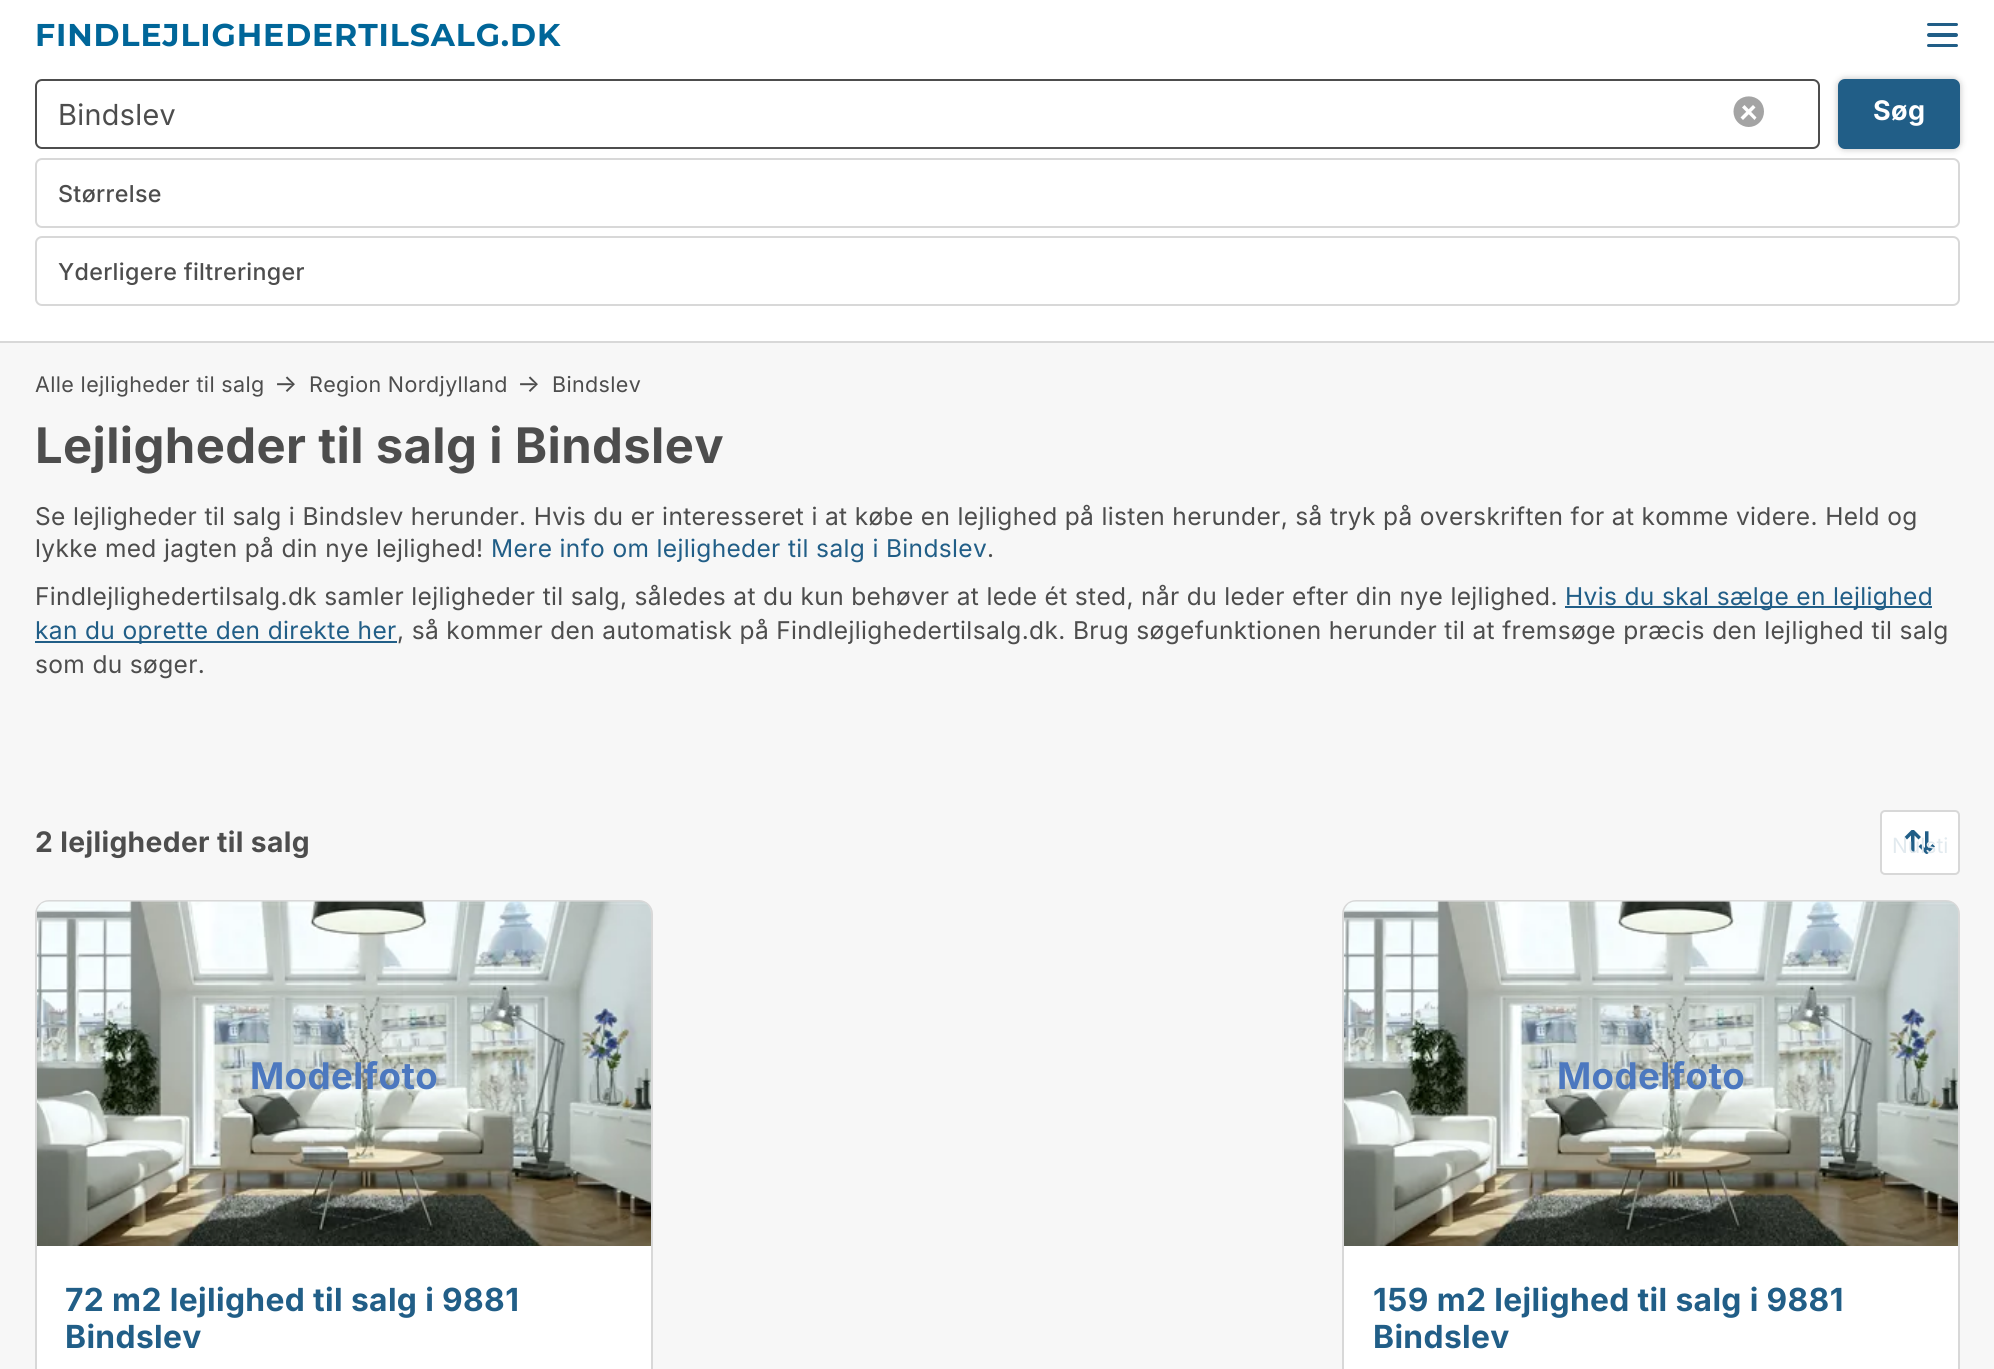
import math
import cairo

surface = cairo.ImageSurface(cairo.Format.RGB24, 1994, 1369)
ctx = cairo.Context(surface)
options = cairo.FontOptions()
options.set_hint_metrics(cairo.HintMetrics.OFF)
options.set_hint_style(cairo.HintStyle.NONE)
ctx.set_font_options(options)
ctx.set_miter_limit(4)


def ink(r, g, b):
    ctx.set_source_rgb(r / 255, g / 255, b / 255)


def write(x, y, s, family, size, color, bold=False, italic=False):
    ctx.select_font_face(family, cairo.FontSlant.ITALIC if italic else cairo.FontSlant.NORMAL, cairo.FontWeight.BOLD if bold else cairo.FontWeight.NORMAL)
    ctx.set_font_size(size)
    ink(*color)
    ctx.move_to(x, y)
    ctx.show_text(s)


def write_spaced(x, y, s, letter, word):
    ctx.move_to(x, y)
    for ch in s:
        ctx.show_text(ch)
        ctx.rel_move_to(letter + word * (ch == ' '), 0)


def block(x, y, w, h, *color):
    ink(*color)
    ctx.rectangle(x, y, w, h)
    ctx.fill()


def round_path(x, y, w, h, r):
    ctx.new_sub_path()
    for i, (u, v) in enumerate([(x + w - r, y + h - r), (x + r, y + h - r), (x + r, y + r), (x + w - r, y + r)]):
        ctx.arc(u, v, r, i * math.pi / 2, (i + 1) * math.pi / 2)
    ctx.close_path()


def blur_box(x, y, w, h, r, blur, alpha):
    ctx.push_group_with_content(cairo.Content.ALPHA)
    ctx.set_operator(cairo.Operator.SOURCE)
    for i in range(15, -16, -2):
        e = blur * i / 6
        if min(w, h) + 2 * e > 0:
            ctx.set_source_rgba(0, 0, 0, alpha * math.erfc((i - 1) / 8.5) / 2)
            round_path(x - e, y - e, w + 2 * e, h + 2 * e, max(0, min(r + e + blur * .6, min(w, h) / 2 + e)))
            ctx.fill()
    ctx.mask(ctx.pop_group())


def paste(path, x, y, w, h):
    ctx.save()
    ctx.set_source_surface(cairo.ImageSurface.create_from_png(path), x, y)
    ctx.rectangle(x, y, w, h)
    ctx.fill()
    ctx.restore()


s1 = dict(family="Inter", size=21, color=(226, 234, 239))

ink(255, 255, 255)
ctx.paint()
ctx.select_font_face("Montserrat", cairo.FontSlant.NORMAL, cairo.FontWeight.BOLD)
ctx.set_font_size(31.5)
ink(0, 102, 153)
write_spaced(35, 46, "FINDLEJLIGHEDERTILSALG.DK", 0.9, 0)
ink(33, 94, 135)
round_path(1927, 23, 31, 3, 1.5)
ctx.fill()
round_path(1927, 33, 31, 4, 2)
ctx.fill()
round_path(1927, 44, 31, 3, 1.5)
ctx.fill()
block(0, 343, 1994, 1026, 247, 247, 247)
block(0, 341, 1994, 2, 216, 216, 216)
round_path(36, 80, 1783, 68, 6)
ink(77, 77, 77)
ctx.stroke()
ctx.select_font_face("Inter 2")
ctx.set_font_size(29)
write_spaced(58, 125, "Bindslev", 0.35, 0)
ink(164, 164, 164)
ctx.new_path()
ctx.move_to(1759.5, 100.5)
ctx.curve_to(1765.5, 106.5, 1765.5, 116.5, 1759.5, 122.5)
ctx.curve_to(1753.5, 128.5, 1744, 128.5, 1738, 122.5)
ctx.curve_to(1732, 116.5, 1732, 106.5, 1738, 100.5)
ctx.curve_to(1744, 95, 1753.5, 95, 1759.5, 100.5)
ctx.close_path()
ctx.fill()
ink(255, 255, 255)
ctx.new_path()
ctx.move_to(1744.5, 105)
ctx.line_to(1756.5, 117.5)
ctx.line_to(1754.5, 120)
ctx.line_to(1742, 107.5)
ctx.close_path()
ctx.fill()
ctx.new_path()
ctx.move_to(1753, 105)
ctx.line_to(1755.5, 107.5)
ctx.line_to(1743, 120)
ctx.line_to(1740.5, 117.5)
ctx.close_path()
ctx.fill()
ink(0, 0, 0)
blur_box(1838, 79, 122, 70, 7, 3.5, 0.25)
ink(33, 94, 135)
round_path(1838, 79, 122, 70, 7)
ctx.fill()
ctx.select_font_face("Inter", cairo.FontSlant.NORMAL, cairo.FontWeight.BOLD)
ctx.set_font_size(27)
ink(255, 255, 255)
write_spaced(1873, 120, "Søg", 0.35, 0)
round_path(36, 159, 1923, 68, 6)
ink(216, 216, 216)
ctx.stroke()
ctx.select_font_face("Inter Medium")
ctx.set_font_size(23.25)
ink(77, 77, 77)
write_spaced(58, 202, "Størrelse", 0.35, 0)
round_path(36, 237, 1923, 68, 6)
ink(216, 216, 216)
ctx.stroke()
ink(77, 77, 77)
write_spaced(58, 280, "Yderligere filtreringer", 0.35, 0)
ctx.select_font_face("Inter")
ctx.set_font_size(21.5)
write_spaced(35, 392, "Alle lejligheder til salg", 0.35, 0)
ctx.set_font_size(24.5)
write_spaced(274, 392, "→", 0.35, 0)
ctx.set_font_size(21.5)
write_spaced(309, 392, "Region Nordjylland", 0.35, 0)
ctx.set_font_size(24.5)
write_spaced(517, 392, "→", 0.35, 0)
ctx.set_font_size(21.5)
write_spaced(552, 392, "Bindslev", 0.35, 0)
ctx.select_font_face("Inter", cairo.FontSlant.NORMAL, cairo.FontWeight.BOLD)
ctx.set_font_size(49)
write_spaced(35, 463, "Lejligheder til salg i Bindslev", 0.35, 0)
ctx.select_font_face("Inter")
ctx.set_font_size(24.5)
write_spaced(35, 525, "Se lejligheder til salg i Bindslev herunder. Hvis du er interesseret i at købe en lejlighed på listen herunder, så tryk på overskriften for at komme videre. Held og", 0.35, 0)
write_spaced(35, 557, "lykke med jagten på din nye lejlighed!", 0.35, 0)
ink(33, 94, 135)
write_spaced(491, 557, "Mere info om lejligheder til salg i Bindslev", 0.35, 0)
ink(77, 77, 77)
write_spaced(987, 557, ".", 0.35, 0)
write_spaced(35, 605, "Findlejlighedertilsalg.dk samler lejligheder til salg, således at du kun behøver at lede ét sted, når du leder efter din nye lejlighed.", 0.35, 0)
block(1565, 606, 367, 2, 33, 94, 135)
write_spaced(1565, 605, "Hvis du skal sælge en lejlighed", 0.35, 0)
block(35, 641, 362, 2, 33, 94, 135)
write_spaced(35, 639, "kan du oprette den direkte her", 0.35, 0)
ink(77, 77, 77)
write_spaced(397, 639, ", så kommer den automatisk på Findlejlighedertilsalg.dk. Brug søgefunktionen herunder til at fremsøge præcis den lejlighed til salg", 0.35, 0)
write_spaced(35, 673, "som du søger.", 0.35, 0)
ctx.select_font_face("Inter", cairo.FontSlant.NORMAL, cairo.FontWeight.BOLD)
ctx.set_font_size(28.25)
write_spaced(35, 852, "2 lejligheder til salg", 0.35, 0)
ink(255, 255, 255)
round_path(1881, 811, 78, 63, 4)
ctx.fill_preserve()
ink(216, 216, 216)
ctx.stroke()
paste("pic1.png", 1904, 830, 31, 24)
write(1892, 853, "Nulsti", **s1)
ink(255, 255, 255)
round_path(36, 901, 616, 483, 13)
ctx.fill_preserve()
ink(216, 216, 216)
ctx.stroke()
paste("pic2.png", 37, 901, 614, 345)
ctx.select_font_face("Inter", cairo.FontSlant.NORMAL, cairo.FontWeight.BOLD)
ctx.set_font_size(36.75)
ink(76, 120, 191)
write_spaced(250, 1089, "Modelfoto", 0.35, 0)
ctx.set_font_size(31.8)
ink(33, 94, 135)
write_spaced(65, 1311, "72 m2 lejlighed til salg i 9881", 0.35, 0)
write_spaced(65, 1348, "Bindslev", 0.35, 0)
ink(255, 255, 255)
round_path(1343, 901, 616, 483, 13)
ctx.fill_preserve()
ink(216, 216, 216)
ctx.stroke()
paste("pic3.png", 1344, 901, 614, 345)
ctx.set_font_size(36.75)
ink(76, 120, 191)
write_spaced(1557, 1089, "Modelfoto", 0.35, 0)
ctx.set_font_size(31.8)
ink(33, 94, 135)
write_spaced(1373, 1311, "159 m2 lejlighed til salg i 9881", 0.35, 0)
write_spaced(1373, 1348, "Bindslev", 0.35, 0)
surface.write_to_png("screenshot.png")
